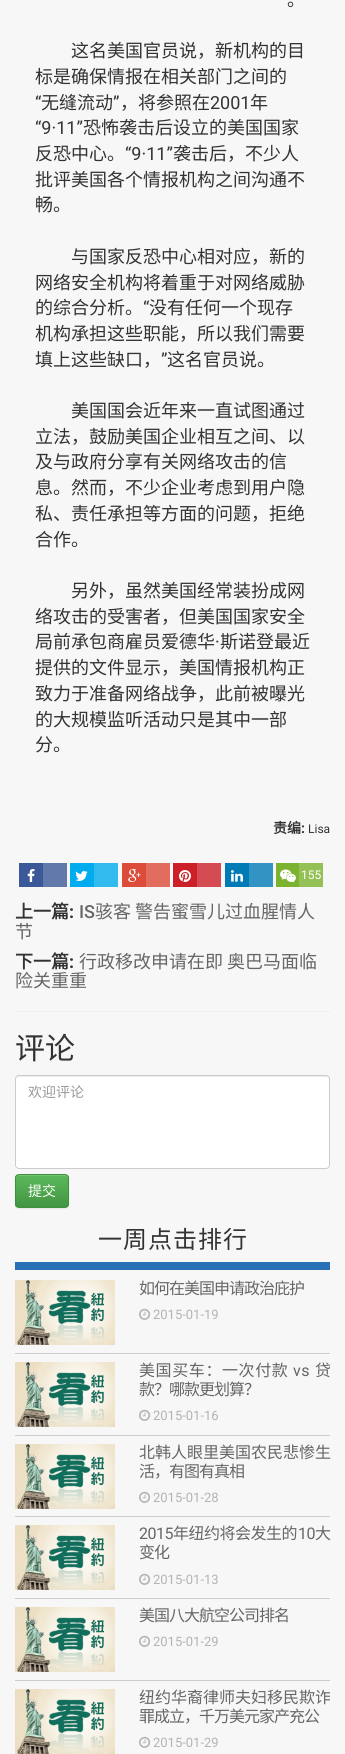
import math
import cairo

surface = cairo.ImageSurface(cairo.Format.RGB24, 345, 1754)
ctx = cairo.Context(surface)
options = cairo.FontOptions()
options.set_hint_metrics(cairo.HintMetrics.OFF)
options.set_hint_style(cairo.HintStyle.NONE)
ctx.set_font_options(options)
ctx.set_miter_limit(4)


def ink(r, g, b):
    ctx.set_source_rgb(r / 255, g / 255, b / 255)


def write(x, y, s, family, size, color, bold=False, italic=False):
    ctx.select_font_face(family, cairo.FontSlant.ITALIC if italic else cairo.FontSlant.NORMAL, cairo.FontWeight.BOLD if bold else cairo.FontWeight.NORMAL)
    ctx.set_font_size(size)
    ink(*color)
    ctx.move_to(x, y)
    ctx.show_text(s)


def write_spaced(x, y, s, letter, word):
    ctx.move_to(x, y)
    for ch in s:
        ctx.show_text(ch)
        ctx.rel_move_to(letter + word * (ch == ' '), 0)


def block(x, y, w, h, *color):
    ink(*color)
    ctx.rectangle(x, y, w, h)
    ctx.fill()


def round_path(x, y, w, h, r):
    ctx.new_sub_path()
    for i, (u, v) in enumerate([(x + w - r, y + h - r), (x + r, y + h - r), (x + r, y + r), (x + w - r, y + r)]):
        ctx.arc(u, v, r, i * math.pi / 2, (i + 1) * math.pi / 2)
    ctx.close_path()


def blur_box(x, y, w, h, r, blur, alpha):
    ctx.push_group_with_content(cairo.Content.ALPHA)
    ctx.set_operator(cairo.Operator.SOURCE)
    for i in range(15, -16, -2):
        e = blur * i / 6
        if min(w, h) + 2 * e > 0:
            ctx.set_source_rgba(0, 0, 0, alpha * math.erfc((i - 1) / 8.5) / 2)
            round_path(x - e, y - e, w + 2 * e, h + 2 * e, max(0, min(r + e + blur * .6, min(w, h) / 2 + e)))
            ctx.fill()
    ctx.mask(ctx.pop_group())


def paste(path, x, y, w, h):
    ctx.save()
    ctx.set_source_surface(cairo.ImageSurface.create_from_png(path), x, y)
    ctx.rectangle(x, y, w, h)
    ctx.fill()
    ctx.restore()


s1 = dict(family="Noto Sans CJK SC", size=18, color=(51, 51, 51))
s2 = dict(family="Roboto", size=18, color=(51, 51, 51))
s3 = dict(family="Noto Sans CJK SC", size=14, color=(51, 51, 51), bold=True)
s4 = dict(family="Roboto", size=14, color=(51, 51, 51), bold=True)
s5 = dict(family="Roboto", size=12, color=(51, 51, 51))
s6 = dict(family="Roboto", size=12, color=(255, 255, 255))
s7 = dict(family="Noto Sans CJK SC", size=18, color=(51, 51, 51), bold=True)
s8 = dict(family="Roboto", size=18, color=(51, 51, 51), bold=True)
s9 = dict(family="Roboto Medium", size=18, color=(102, 102, 102))
s10 = dict(family="Noto Sans CJK SC", size=18, color=(102, 102, 102))
s11 = dict(family="Noto Sans CJK SC", size=30, color=(51, 51, 51))
s12 = dict(family="Noto Sans CJK SC", size=14, color=(153, 153, 153))
s13 = dict(family="Noto Sans CJK SC", size=14, color=(255, 255, 255))
s14 = dict(family="Roboto", size=13, color=(179, 179, 179))
s15 = dict(family="Noto Sans CJK SC", size=16, color=(102, 102, 102))

ink(247, 247, 247)
ctx.paint()
write(287, 6, "。", **s1)
write(71, 57, "这名美国官员说，新机构的目", **s1)
write(35, 83, "标是确保情报在相关部门之间的", **s1)
write(35, 109, "“", **s2)
write(41, 109, "无缝流动", **s1)
write(113, 109, "”", **s2)
write(120, 109, "，将参照在", **s1)
write(210, 109, "2001", **s2)
write(250, 109, "年", **s1)
write(35, 134, "“9·11”", **s2)
write(83, 134, "恐怖袭击后设立的美国国家", **s1)
write(35, 160, "反恐中心。", **s1)
write(125, 160, "“9·11”", **s2)
write(173, 160, "袭击后，不少人", **s1)
write(35, 186, "批评美国各个情报机构之间沟通不", **s1)
write(35, 211, "畅。", **s1)
write(71, 263, "与国家反恐中心相对应，新的", **s1)
write(35, 289, "网络安全机构将着重于对网络威胁", **s1)
write(35, 314, "的综合分析。", **s1)
write(143, 314, "“", **s2)
write(149, 314, "没有任何一个现存", **s1)
write(35, 340, "机构承担这些职能，所以我们需要", **s1)
write(35, 366, "填上这些缺口，", **s1)
write(161, 366, "”", **s2)
write(167, 366, "这名官员说。", **s1)
write(71, 417, "美国国会近年来一直试图通过", **s1)
write(35, 443, "立法，鼓励美国企业相互之间、以", **s1)
write(35, 468, "及与政府分享有关网络攻击的信", **s1)
write(35, 494, "息。然而，不少企业考虑到用户隐", **s1)
write(35, 520, "私、责任承担等方面的问题，拒绝", **s1)
write(35, 546, "合作。", **s1)
write(71, 597, "另外，虽然美国经常装扮成网", **s1)
write(35, 623, "络攻击的受害者，但美国国家安全", **s1)
write(35, 648, "局前承包商雇员爱德华", **s1)
write(215, 648, "·", **s2)
write(220, 648, "斯诺登最近", **s1)
write(35, 674, "提供的文件显示，美国情报机构正", **s1)
write(35, 700, "致力于准备网络战争，此前被曝光", **s1)
write(35, 726, "的大规模监听活动只是其中一部", **s1)
write(35, 751, "分。", **s1)
write(273, 833, "责编", **s3)
write(301, 833, ":", **s4)
write(308, 833, "Lisa", **s5)
block(19, 863, 24, 24, 59, 89, 152)
paste("pic1.png", 27, 869, 8, 13)
block(43, 863, 24, 24, 97, 121, 171)
block(70, 863, 24, 24, 0, 172, 237)
paste("pic2.png", 75, 871, 13, 10)
block(94, 863, 24, 24, 49, 187, 239)
block(122, 863, 24, 24, 221, 75, 57)
paste("pic3.png", 128, 869, 13, 13)
block(146, 863, 24, 24, 226, 109, 95)
block(173, 863, 24, 24, 203, 32, 39)
paste("pic4.png", 179, 870, 12, 12)
block(197, 863, 24, 24, 212, 75, 81)
block(225, 863, 24, 24, 0, 123, 181)
paste("pic5.png", 231, 870, 12, 12)
block(249, 863, 24, 24, 49, 148, 194)
block(276, 863, 23, 24, 123, 179, 46)
paste("pic6.png", 280, 869, 16, 14)
block(299, 863, 24, 24, 148, 193, 86)
write(301, 879, "155", **s6)
write(15, 918, "上一篇", **s7)
write(69, 918, ":", **s8)
write(79, 918, "IS", **s9)
write(95, 918, "骇客 警告蜜雪儿过血腥情人", **s10)
write(15, 938, "节", **s10)
write(15, 968, "下一篇", **s7)
write(69, 968, ":", **s8)
write(79, 968, "行政移改申请在即 奥巴马面临", **s10)
write(15, 987, "险关重重", **s10)
block(15, 1011, 315, 1, 238, 238, 238)
write(15, 1059, "评论", **s11)
ink(255, 255, 255)
round_path(15, 1075, 315, 94, 4)
ctx.fill()
ink(236, 236, 236)
ctx.new_path()
ctx.move_to(19, 1077)
ctx.line_to(326, 1077)
ctx.curve_to(328, 1077, 329, 1078, 329, 1080)
ctx.line_to(328, 1077)
ctx.line_to(327, 1076)
ctx.line_to(19, 1076)
ctx.curve_to(17, 1076, 16, 1078, 16, 1080)
ctx.curve_to(16, 1078, 17, 1077, 19, 1077)
ctx.close_path()
ctx.fill()
round_path(15.5, 1075.5, 314, 93, 3.5)
ink(204, 204, 204)
ctx.set_line_width(1)
ctx.stroke()
write(28, 1097, "欢迎评论", **s12)
ink(0, 0, 0)
blur_box(15, 1175, 54, 34, 4, 0.5, 0.07)
ctx.save()
round_path(15, 1174, 54, 34, 4)
ctx.clip()
gradient = cairo.LinearGradient(42, 1175, 42, 1207)
gradient.add_color_stop_rgba(0, 0.361, 0.722, 0.361, 1)
gradient.add_color_stop_rgba(1, 0.255, 0.588, 0.255, 1)
ctx.set_source(gradient)
ctx.rectangle(15, 1175, 54, 32)
ctx.fill()
ctx.restore()
ink(116, 194, 116)
ctx.new_path()
ctx.move_to(19, 1176)
ctx.line_to(65, 1176)
ctx.curve_to(67, 1176, 68, 1177, 68, 1179)
ctx.curve_to(68, 1173, 62, 1175, 57, 1175)
ctx.line_to(27, 1175)
ctx.curve_to(22, 1175, 16, 1173, 16, 1179)
ctx.curve_to(16, 1177, 17, 1176, 19, 1176)
ctx.close_path()
ctx.fill()
round_path(15.5, 1174.5, 53, 33, 3.5)
ink(62, 143, 62)
ctx.stroke()
write(28, 1196, "提交", **s13)
block(15, 1262, 315, 8, 41, 112, 183)
ctx.set_font_size(24)
ink(51, 51, 51)
write_spaced(98, 1248, "一周点击排行", 1, 0)
block(15, 1353, 315, 1, 204, 204, 204)
paste("pic7.png", 15, 1280, 100, 65)
ctx.set_font_size(16)
ink(102, 102, 102)
write_spaced(139, 1294, "如何在美国申请政治庇护", -1, 0)
paste("pic8.png", 139, 1308, 12, 12)
write(153, 1319, "2015-01-19", **s14)
block(15, 1435, 315, 1, 204, 204, 204)
paste("pic7.png", 15, 1362, 100, 65)
ctx.select_font_face("Noto Sans CJK SC")
ctx.set_font_size(16)
ink(102, 102, 102)
write_spaced(139, 1376, "美国买车：一次付款", 0.6, 0)
ctx.select_font_face("Roboto")
write_spaced(293, 1376, "vs", 0.6, 0)
ctx.select_font_face("Noto Sans CJK SC")
write_spaced(315, 1376, "贷", 0.6, 0)
write_spaced(139, 1395, "款？哪款更划算？", -1, 0)
paste("pic8.png", 139, 1409, 12, 12)
write(153, 1420, "2015-01-16", **s14)
block(15, 1516, 315, 1, 204, 204, 204)
paste("pic7.png", 15, 1444, 100, 65)
write(139, 1458, "北韩人眼里美国农民悲惨生", **s15)
write_spaced(139, 1477, "活，有图有真相", -1, 0)
paste("pic8.png", 139, 1491, 12, 12)
write(153, 1502, "2015-01-28", **s14)
block(15, 1598, 315, 1, 204, 204, 204)
paste("pic7.png", 15, 1525, 100, 65)
ctx.set_font_size(16)
ink(102, 102, 102)
write_spaced(139, 1539, "2015", -0.5, 0)
ctx.select_font_face("Noto Sans CJK SC")
write_spaced(173, 1539, "年纽约将会发生的", -0.5, 0)
ctx.select_font_face("Roboto")
write_spaced(298, 1539, "10", -0.5, 0)
ctx.select_font_face("Noto Sans CJK SC")
write_spaced(315, 1539, "大", -0.5, 0)
write_spaced(139, 1558, "变化", -1, 0)
paste("pic8.png", 139, 1573, 12, 12)
write(153, 1584, "2015-01-13", **s14)
block(15, 1680, 315, 1, 204, 204, 204)
paste("pic7.png", 15, 1607, 100, 65)
ctx.select_font_face("Noto Sans CJK SC")
ctx.set_font_size(16)
ink(102, 102, 102)
write_spaced(139, 1621, "美国八大航空公司排名", -1, 0)
paste("pic8.png", 139, 1635, 12, 12)
write(153, 1646, "2015-01-29", **s14)
paste("pic7.png", 15, 1689, 100, 65)
ctx.save()
ctx.rectangle(139, 1688, 191, 38)
ctx.clip()
write(139, 1703, "纽约华裔律师夫妇移民欺诈", **s15)
ctx.restore()
ctx.select_font_face("Noto Sans CJK SC")
ctx.set_font_size(16)
ink(102, 102, 102)
write_spaced(139, 1722, "罪成立，千万美元家产充公", -1, 0)
paste("pic8.png", 139, 1736, 12, 12)
write(153, 1747, "2015-01-29", **s14)
surface.write_to_png("screenshot.png")
